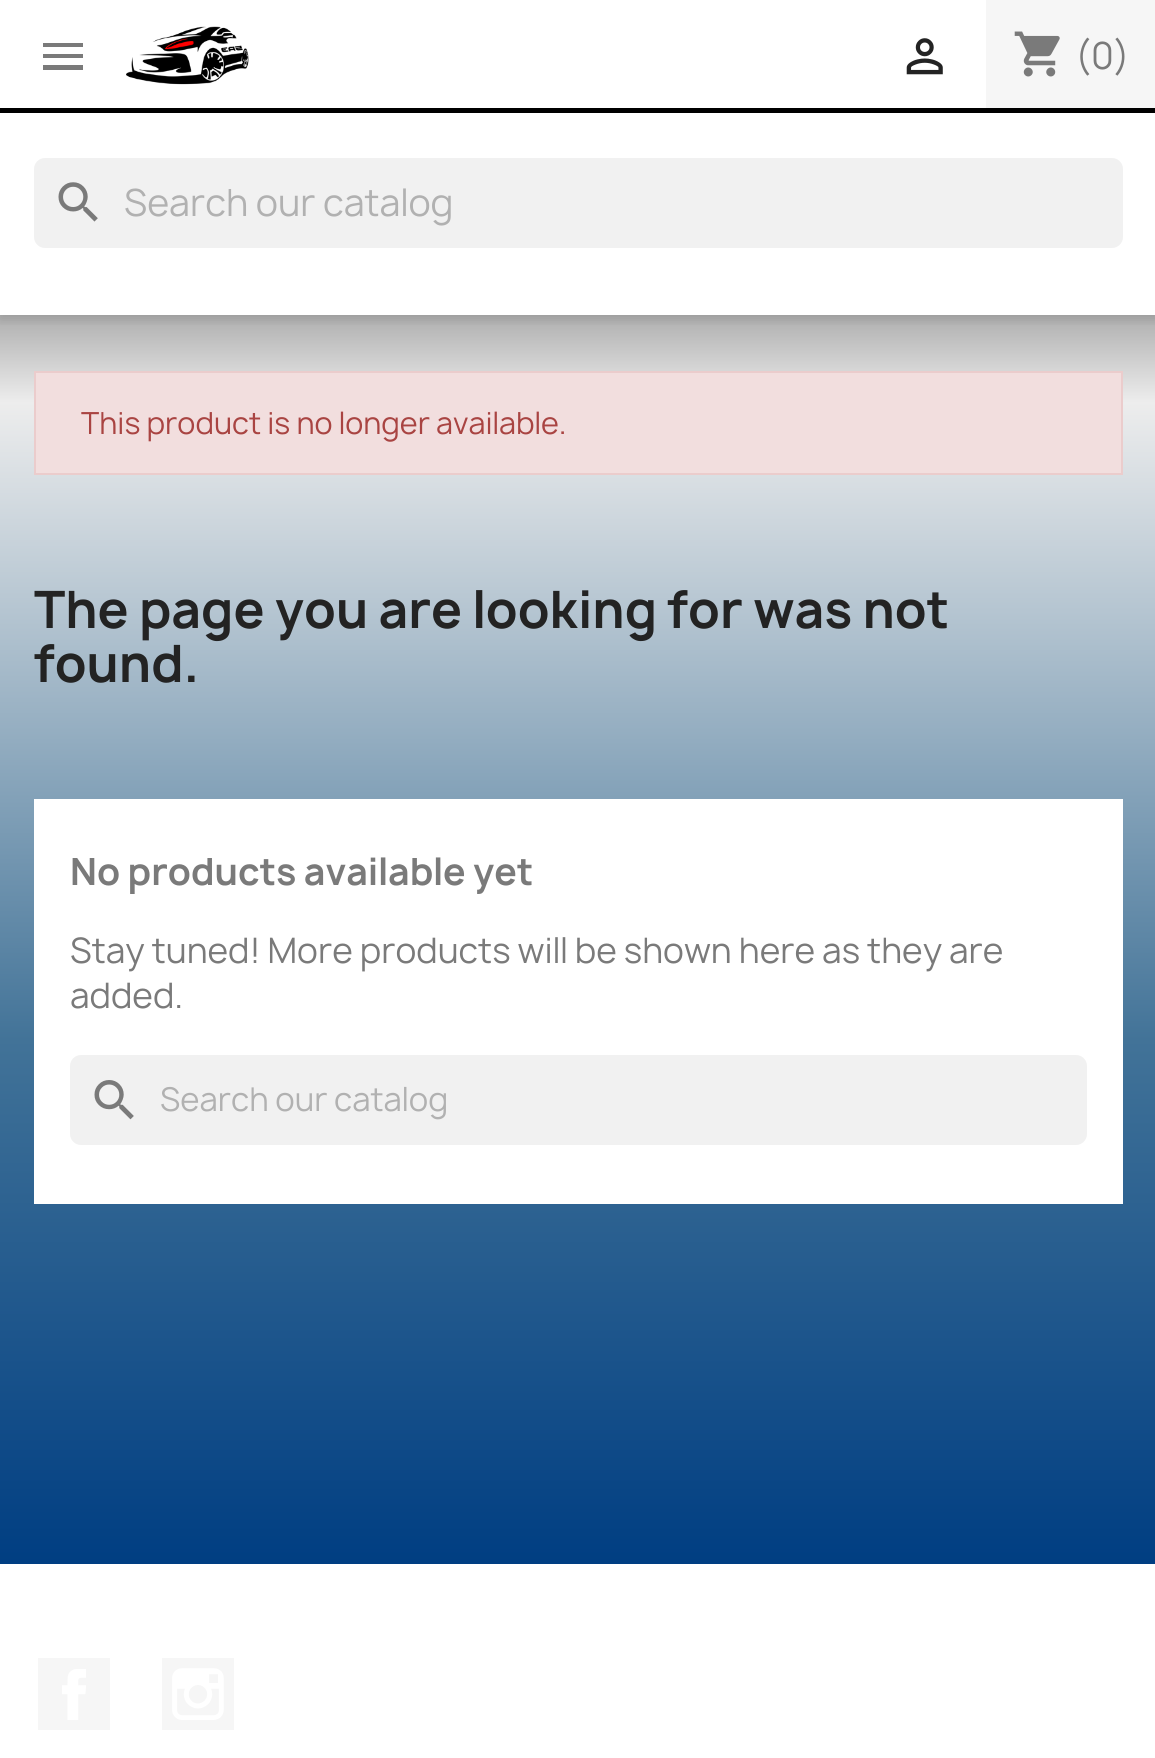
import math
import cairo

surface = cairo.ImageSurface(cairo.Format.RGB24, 1155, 1758)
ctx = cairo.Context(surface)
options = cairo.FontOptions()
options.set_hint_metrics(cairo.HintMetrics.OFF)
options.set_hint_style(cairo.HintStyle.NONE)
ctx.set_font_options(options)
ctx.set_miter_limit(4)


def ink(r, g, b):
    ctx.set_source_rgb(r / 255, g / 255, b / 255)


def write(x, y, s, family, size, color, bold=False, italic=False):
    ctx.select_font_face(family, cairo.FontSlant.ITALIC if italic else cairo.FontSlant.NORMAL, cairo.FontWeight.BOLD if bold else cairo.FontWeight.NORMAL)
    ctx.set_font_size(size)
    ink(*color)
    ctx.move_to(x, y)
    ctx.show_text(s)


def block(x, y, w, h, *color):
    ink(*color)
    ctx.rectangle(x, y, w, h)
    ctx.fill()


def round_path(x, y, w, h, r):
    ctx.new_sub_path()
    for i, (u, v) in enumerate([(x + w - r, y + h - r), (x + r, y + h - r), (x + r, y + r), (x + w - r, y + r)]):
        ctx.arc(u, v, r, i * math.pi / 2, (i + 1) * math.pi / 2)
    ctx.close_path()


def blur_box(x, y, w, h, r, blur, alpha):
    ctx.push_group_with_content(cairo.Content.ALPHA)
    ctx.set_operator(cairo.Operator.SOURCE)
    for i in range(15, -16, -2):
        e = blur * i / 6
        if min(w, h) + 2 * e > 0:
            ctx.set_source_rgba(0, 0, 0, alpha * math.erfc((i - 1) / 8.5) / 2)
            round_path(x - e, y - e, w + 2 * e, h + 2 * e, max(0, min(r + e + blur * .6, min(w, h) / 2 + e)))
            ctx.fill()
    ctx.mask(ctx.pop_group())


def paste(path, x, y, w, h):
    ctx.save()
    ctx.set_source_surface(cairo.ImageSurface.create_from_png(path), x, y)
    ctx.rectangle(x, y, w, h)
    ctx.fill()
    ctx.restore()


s1 = dict(family="Manrope", size=36, color=(122, 122, 122))
s2 = dict(family="Manrope", size=36, color=(177, 177, 177))
s3 = dict(family="Manrope", size=29.25, color=(169, 68, 66))
s4 = dict(family="Manrope", size=49.5, color=(35, 35, 35), bold=True)
s5 = dict(family="Manrope", size=36, color=(122, 122, 122), bold=True)
s6 = dict(family="Manrope", size=33.75, color=(122, 122, 122))
s7 = dict(family="Manrope", size=31.5, color=(177, 177, 177))

ink(255, 255, 255)
ctx.paint()
gradient = cairo.LinearGradient(578, 315, 578, 1564)
gradient.add_color_stop_rgba(0, 0.686, 0.686, 0.686, 1)
gradient.add_color_stop_rgba(0.07, 0.929, 0.929, 0.929, 1)
gradient.add_color_stop_rgba(0.58, 0.259, 0.451, 0.596, 1)
gradient.add_color_stop_rgba(1, 0, 0.243, 0.51, 1)
ctx.set_source(gradient)
ctx.rectangle(0, 315, 1155, 1249)
ctx.fill()
ctx.save()
ctx.rectangle(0, 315, 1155, 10)
ctx.clip()
ink(0, 0, 0)
blur_box(0, 5, 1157, 315, 0, 5.5, 0.11)
ctx.restore()
block(0, 108, 1155, 5, 0, 0, 0)
ink(122, 122, 122)
ctx.new_path()
ctx.move_to(43, 43)
ctx.line_to(83, 43)
ctx.line_to(83, 47)
ctx.line_to(43, 47)
ctx.close_path()
ctx.move_to(43, 58)
ctx.line_to(43, 54)
ctx.line_to(83, 54)
ctx.line_to(83, 58)
ctx.close_path()
ctx.move_to(43, 70)
ctx.line_to(43, 65)
ctx.line_to(83, 65)
ctx.line_to(83, 70)
ctx.close_path()
ctx.fill()
paste("pic1.png", 126, 26, 123, 59)
paste("pic2.png", 906, 38, 37, 37)
block(986, 0, 169, 108, 246, 246, 246)
paste("pic3.png", 1014, 31, 46, 46)
write(1075, 69, "(0)", **s1)
ink(241, 241, 241)
round_path(34, 158, 1089, 90, 11)
ctx.fill()
paste("pic4.png", 58, 182, 40, 40)
write(124, 216, "Search our catalog", **s2)
ink(242, 222, 222)
ctx.rectangle(35, 372, 1087, 102)
ctx.fill_preserve()
ink(235, 204, 204)
ctx.stroke()
write(81, 434, "This product is no longer available.", **s3)
write(34, 628, "The page you are looking for was not", **s4)
write(34, 682, "found.", **s4)
block(34, 799, 1089, 405, 255, 255, 255)
write(70, 885, "No products available yet", **s5)
write(70, 963, "Stay tuned! More products will be shown here as they are", **s6)
write(70, 1008, "added.", **s6)
ink(241, 241, 241)
round_path(70, 1055, 1017, 90, 11)
ctx.fill()
paste("pic5.png", 94, 1080, 40, 40)
write(160, 1111, "Search our catalog", **s7)
block(38, 1658, 72, 72, 246, 246, 246)
paste("pic6.png", 62, 1669, 24, 51)
block(162, 1658, 72, 72, 246, 246, 246)
paste("pic7.png", 172, 1668, 52, 52)
surface.write_to_png("screenshot.png")
